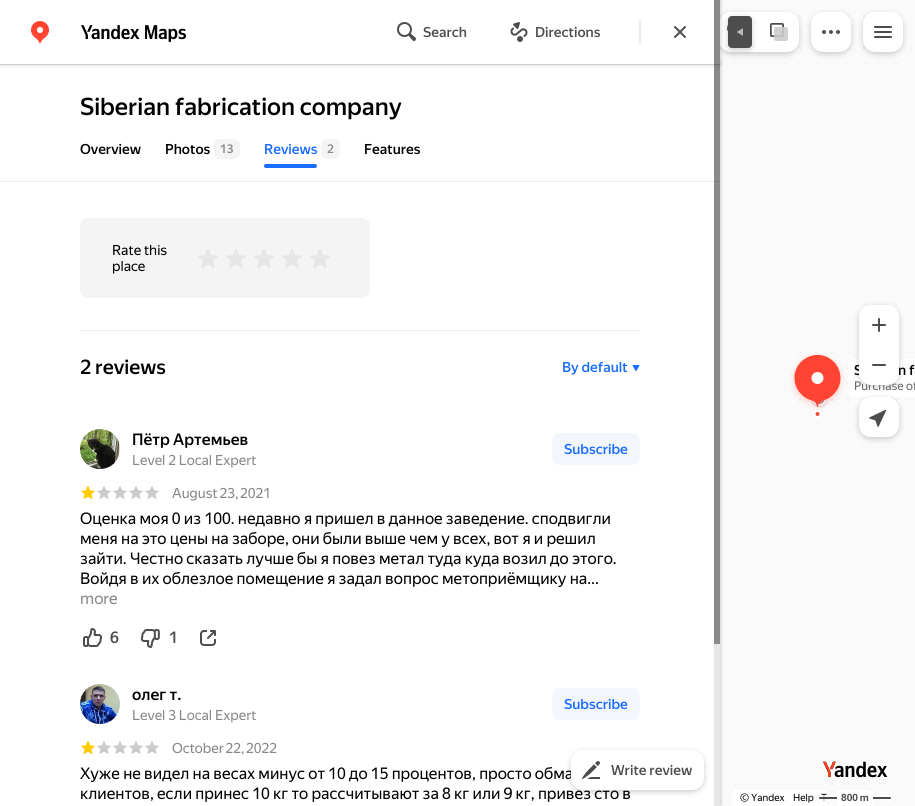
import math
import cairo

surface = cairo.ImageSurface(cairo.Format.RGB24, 915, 806)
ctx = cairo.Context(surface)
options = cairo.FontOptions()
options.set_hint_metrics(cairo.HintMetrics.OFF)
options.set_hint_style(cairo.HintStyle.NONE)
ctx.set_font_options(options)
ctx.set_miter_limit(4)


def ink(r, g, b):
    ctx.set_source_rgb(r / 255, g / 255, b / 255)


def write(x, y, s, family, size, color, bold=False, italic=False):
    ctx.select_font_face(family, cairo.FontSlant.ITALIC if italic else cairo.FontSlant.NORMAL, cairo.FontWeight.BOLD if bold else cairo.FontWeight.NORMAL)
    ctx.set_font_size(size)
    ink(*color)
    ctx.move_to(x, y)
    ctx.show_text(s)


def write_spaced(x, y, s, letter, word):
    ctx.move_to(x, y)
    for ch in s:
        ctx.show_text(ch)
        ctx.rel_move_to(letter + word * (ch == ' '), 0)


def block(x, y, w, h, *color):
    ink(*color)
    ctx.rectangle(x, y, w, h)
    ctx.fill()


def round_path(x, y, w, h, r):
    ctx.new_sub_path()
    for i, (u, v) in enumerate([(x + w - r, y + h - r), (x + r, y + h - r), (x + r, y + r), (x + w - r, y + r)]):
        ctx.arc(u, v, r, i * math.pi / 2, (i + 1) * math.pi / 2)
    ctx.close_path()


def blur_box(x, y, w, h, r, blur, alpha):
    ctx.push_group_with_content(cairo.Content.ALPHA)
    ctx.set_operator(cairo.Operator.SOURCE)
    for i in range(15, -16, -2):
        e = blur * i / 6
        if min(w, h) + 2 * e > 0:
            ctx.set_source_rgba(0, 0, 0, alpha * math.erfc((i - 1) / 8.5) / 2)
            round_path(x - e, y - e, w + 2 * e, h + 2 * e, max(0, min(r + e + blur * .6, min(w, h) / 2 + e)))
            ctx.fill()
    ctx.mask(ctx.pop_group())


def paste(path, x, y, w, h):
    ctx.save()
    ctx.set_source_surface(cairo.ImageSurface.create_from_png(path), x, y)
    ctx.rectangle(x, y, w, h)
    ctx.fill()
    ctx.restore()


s1 = dict(family="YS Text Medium", size=14, color=(77, 77, 77))
s2 = dict(family="YS Text Medium", size=24, color=(0, 0, 0))
s3 = dict(family="YS Text Medium", size=14, color=(0, 0, 0))
s4 = dict(family="YS Text Medium", size=12, color=(135, 135, 135))
s5 = dict(family="YS Text Medium", size=14, color=(25, 109, 255))
s6 = dict(family="YS Text", size=14, color=(0, 0, 0))
s7 = dict(family="YS Text Medium", size=20, color=(0, 0, 0))
s8 = dict(family="YS Text Medium", size=16, color=(0, 0, 0))
s9 = dict(family="YS Text", size=14, color=(135, 135, 135))
s10 = dict(family="YS Text", size=16, color=(0, 0, 0))
s11 = dict(family="YS Text", size=16, color=(135, 135, 135))
s12 = dict(family="YS Text Medium", size=16, color=(77, 77, 77))
s13 = dict(family="YS Text", size=12, color=(102, 102, 102))
s14 = dict(family="YS Text", size=10, color=(0, 0, 0))
s15 = dict(family="YS Text", size=10, color=(77, 77, 77), bold=True)

ink(255, 255, 255)
ctx.paint()
paste("pic1.png", 720, 0, 195, 806)
ink(0, 0, 0)
blur_box(719, 14, 80, 40, 12, 3, 0.2)
ink(255, 255, 255)
ctx.new_path()
ctx.move_to(731, 12)
ctx.line_to(759, 12)
ctx.line_to(759, 52)
ctx.line_to(731, 52)
ctx.curve_to(724.5, 52, 719, 46.5, 719, 40)
ctx.line_to(719, 24)
ctx.curve_to(719, 17.5, 724.5, 12, 731, 12)
ctx.close_path()
ctx.fill()
ink(0, 0, 0)
blur_box(2, 0, 720, 806, 0, 1, 0.1)
block(1, 65, 719, 741, 255, 255, 255)
block(0, 64, 720, 1, 235, 235, 235)
ink(0, 0, 0)
blur_box(0, 61, 720, 4, 0, 2, 0.2)
paste("pic18.png", 727, 25, 1, 7)
ink(255, 255, 255)
ctx.new_path()
ctx.move_to(759, 12)
ctx.line_to(787, 12)
ctx.curve_to(793.5, 12, 799, 17.5, 799, 24)
ctx.line_to(799, 40)
ctx.curve_to(799, 46.5, 793.5, 52, 787, 52)
ctx.line_to(759, 52)
ctx.close_path()
ctx.fill()
ink(0, 0, 0)
blur_box(728, 18, 24, 32, 4, 3, 0.2)
block(0, 0, 720, 64, 255, 255, 255)
paste("pic2.png", 31, 21, 18, 23)
paste("pic3.png", 81, 25, 105, 17)
paste("pic4.png", 397, 22, 19, 19)
write(423, 37, "Search", **s1)
paste("pic5.png", 510, 22, 18, 20)
write(535, 37, "Directions", **s1)
block(639, 20, 2, 24, 235, 235, 235)
paste("pic6.png", 674, 26, 12, 12)
write(80, 115, "Siberian fabrication company", **s2)
write(80, 154, "Overview", **s3)
write(165, 154, "Photos", **s3)
ink(244, 244, 244)
round_path(214, 139, 26, 20, 6)
ctx.fill()
write(220, 153, "13", **s4)
write(264, 154, "Reviews", **s5)
ink(244, 244, 244)
round_path(321, 139, 19, 20, 6)
ctx.fill()
write(327, 153, "2", **s4)
write(364, 154, "Features", **s3)
ink(25, 109, 255)
round_path(264, 164, 53, 4, 2)
ctx.fill()
block(0, 181, 720, 1, 235, 235, 235)
ink(244, 244, 244)
round_path(80, 218, 290, 80, 8)
ctx.fill()
write(112, 255, "Rate this", **s6)
write(112, 271, "place", **s6)
paste("pic7.png", 198, 249, 20, 19)
paste("pic7.png", 226, 249, 20, 19)
paste("pic7.png", 254, 249, 20, 19)
paste("pic7.png", 282, 249, 20, 19)
paste("pic7.png", 310, 249, 20, 19)
block(80, 330, 560, 1, 235, 235, 235)
write(80, 374, "2 reviews", **s7)
write(562, 372, "By default", **s5)
paste("pic8.png", 632, 365, 8, 6)
paste("pic9.png", 80, 429, 40, 40)
write(132, 445, "Пётр Артемьев", **s8)
write(132, 465, "Level 2 Local Expert", **s9)
ink(243, 246, 252)
round_path(552, 433, 88, 32, 8)
ctx.fill()
write(564, 454, "Subscribe", **s5)
paste("pic10.png", 81, 486, 14, 13)
paste("pic11.png", 97, 486, 14, 13)
paste("pic11.png", 113, 486, 14, 13)
paste("pic11.png", 129, 486, 14, 13)
paste("pic11.png", 145, 486, 14, 13)
ctx.select_font_face("YS Text")
ink(135, 135, 135)
write_spaced(172, 498, "August 23, 2021", 0, -1)
write(80, 524, "Оценка моя 0 из 100. недавно я пришел в данное заведение. сподвигли", **s10)
write(80, 544, "меня на это цены на заборе, они были выше чем у всех, вот я и решил", **s10)
write(80, 564, "зайти. Честно сказать лучше бы я повез метал туда куда возил до этого.", **s10)
write(80, 584, "Войдя в их облезлое помещение я задал вопрос метоприёмщику на…", **s10)
write(80, 604, "more", **s11)
paste("pic12.png", 83, 628, 19, 19)
write(110, 643, "6", **s12)
paste("pic13.png", 140, 629, 20, 19)
write(169, 643, "1", **s12)
paste("pic14.png", 200, 630, 16, 16)
paste("pic15.png", 80, 684, 40, 40)
write(132, 700, "олег т.", **s8)
write(132, 720, "Level 3 Local Expert", **s9)
ink(243, 246, 252)
round_path(552, 688, 88, 32, 8)
ctx.fill()
write(564, 709, "Subscribe", **s5)
paste("pic10.png", 81, 741, 14, 13)
paste("pic11.png", 97, 741, 14, 13)
paste("pic11.png", 113, 741, 14, 13)
paste("pic11.png", 129, 741, 14, 13)
paste("pic11.png", 145, 741, 14, 13)
ctx.select_font_face("YS Text")
ink(135, 135, 135)
write_spaced(172, 753, "October 22, 2022", 0, -1)
write(80, 779, "Хуже не видел на весах минус от 10 до 15 процентов, просто обма", **s10)
write(80, 799, "клиентов, если принес 10 кг то рассчитывают за 8 кг или 9 кг, привез сто в", **s10)
ink(0, 0, 0)
blur_box(571, 752, 133, 40, 12, 3, 0.2)
ink(255, 255, 255)
round_path(571, 750, 133, 40, 12)
ctx.fill()
paste("pic16.png", 582, 761, 19, 18)
write(611, 775, "Write review", **s1)
ctx.set_source_rgba(0, 0, 0, 0.1)
ctx.rectangle(714, 0, 6, 806)
ctx.fill()
ctx.set_source_rgba(0, 0, 0, 0.4)
ctx.rectangle(714, 0, 6, 644)
ctx.fill()
ink(77, 77, 77)
round_path(728, 16, 24, 32, 4)
ctx.fill()
paste("pic17.png", 737, 28, 6, 8)
paste("pic19.png", 770, 23, 18, 18)
ink(0, 0, 0)
blur_box(811, 14, 40, 40, 12, 3, 0.2)
ink(255, 255, 255)
round_path(811, 12, 40, 40, 12)
ctx.fill()
paste("pic20.png", 822, 30, 18, 4)
ink(0, 0, 0)
blur_box(863, 14, 40, 40, 12, 3, 0.2)
ink(255, 255, 255)
round_path(863, 12, 40, 40, 12)
ctx.fill()
paste("pic21.png", 874, 26, 18, 12)
ctx.set_source_rgba(1, 1, 1, 0.9)
ctx.new_path()
ctx.move_to(854, 359)
ctx.line_to(915, 359)
ctx.line_to(915, 397)
ctx.line_to(854, 397)
ctx.curve_to(850.5, 397, 848, 394.5, 848, 391)
ctx.line_to(848, 365)
ctx.curve_to(848, 361.5, 850.5, 359, 854, 359)
ctx.close_path()
ctx.fill()
ink(0, 0, 0)
blur_box(859, 307, 40, 80, 12, 3, 0.2)
ink(255, 255, 255)
ctx.new_path()
ctx.move_to(871, 305)
ctx.line_to(887, 305)
ctx.curve_to(893.5, 305, 899, 310.5, 899, 317)
ctx.line_to(899, 345)
ctx.line_to(859, 345)
ctx.line_to(859, 317)
ctx.curve_to(859, 310.5, 864.5, 305, 871, 305)
ctx.close_path()
ctx.fill()
paste("pic22.png", 872, 318, 14, 14)
write(854, 375, "S", **s3)
write(898, 375, "n f", **s3)
write(854, 390, "Purchase of", **s13)
ink(255, 255, 255)
ctx.new_path()
ctx.move_to(859, 345)
ctx.line_to(899, 345)
ctx.line_to(899, 373)
ctx.curve_to(899, 379.5, 893.5, 385, 887, 385)
ctx.line_to(871, 385)
ctx.curve_to(864.5, 385, 859, 379.5, 859, 373)
ctx.close_path()
ctx.fill()
paste("pic23.png", 872, 364, 14, 2)
ink(0, 0, 0)
blur_box(859, 399, 40, 40, 12, 3, 0.2)
ink(255, 255, 255)
round_path(859, 397, 40, 40, 12)
ctx.fill()
paste("pic24.png", 869, 409, 18, 18)
paste("pic25.png", 823, 761, 65, 17)
ctx.new_path()
ctx.move_to(736, 790)
ctx.line_to(823, 790)
ctx.curve_to(825, 790, 827, 792, 827, 794)
ctx.line_to(827, 806)
ctx.line_to(732, 806)
ctx.line_to(732, 794)
ctx.curve_to(732, 792, 734, 790, 736, 790)
ctx.close_path()
ctx.fill()
write(740, 801, "© Yandex", **s14)
write(793, 801, "Help", **s14)
write(821, 801, "T", **s14)
ctx.set_source_rgba(1, 1, 1, 0.6)
round_path(817, 795, 76, 6, 3)
ctx.fill()
ink(77, 77, 77)
round_path(819, 797, 72, 2, 1)
ctx.fill()
ink(255, 255, 255)
ctx.new_path()
ctx.move_to(841, 790)
ctx.line_to(869, 790)
ctx.curve_to(871, 790, 873, 792, 873, 794)
ctx.line_to(873, 806)
ctx.line_to(837, 806)
ctx.line_to(837, 794)
ctx.curve_to(837, 792, 839, 790, 841, 790)
ctx.close_path()
ctx.fill()
write(841, 801, "800 m", **s15)
paste("pic28.png", 811, 398, 17, 10)
paste("pic26.png", 790, 353, 55, 65)
paste("pic27.png", 811, 372, 13, 12)
surface.write_to_png("screenshot.png")
